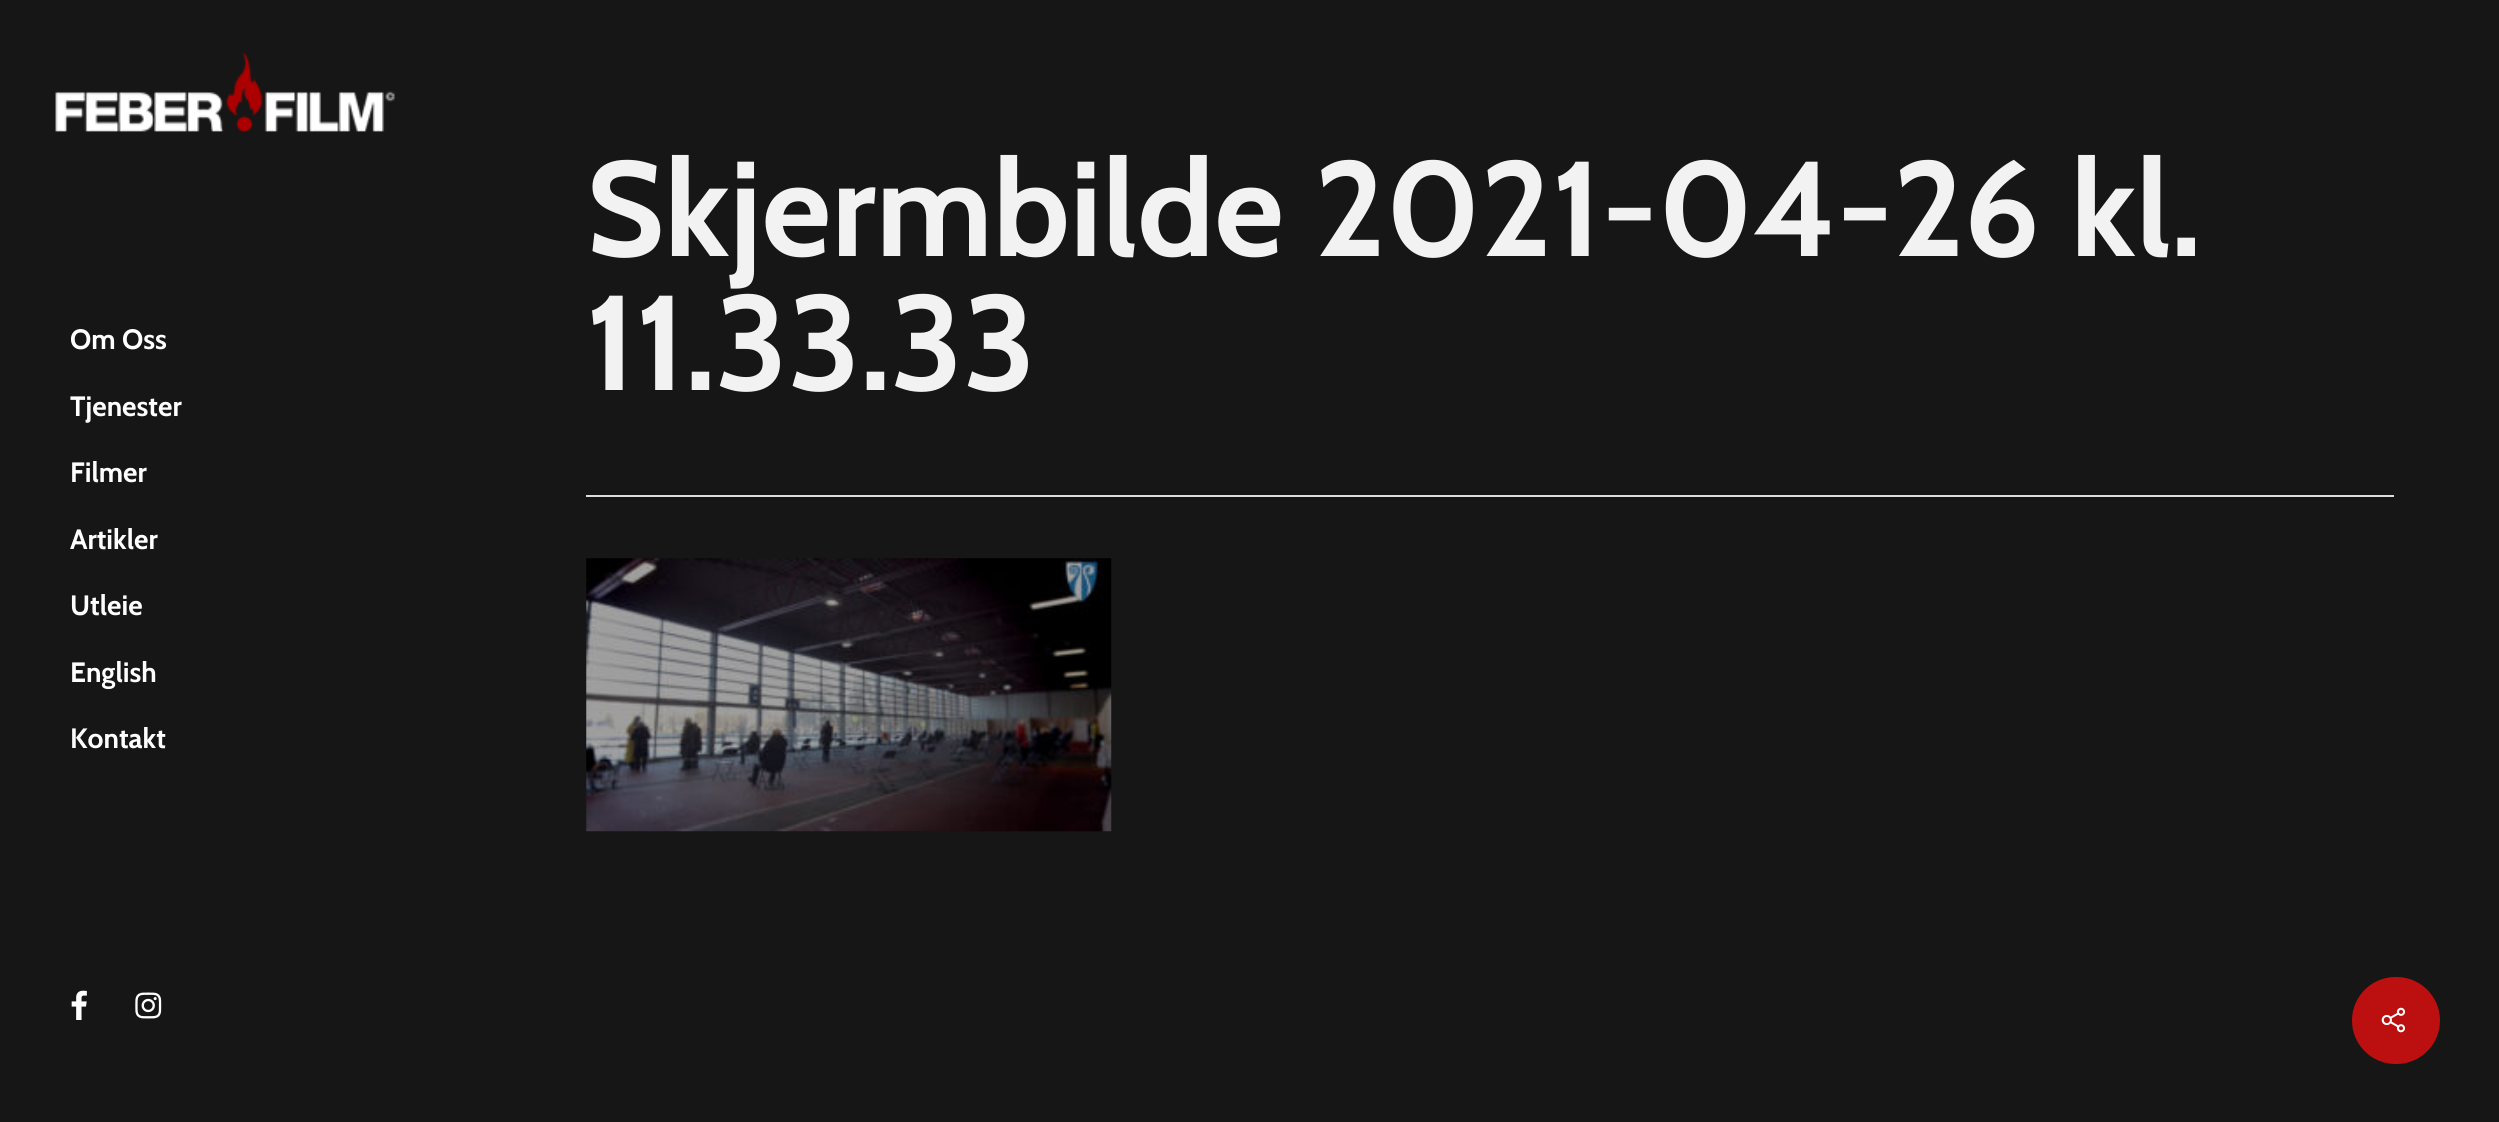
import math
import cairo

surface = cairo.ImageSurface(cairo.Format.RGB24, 2499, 1122)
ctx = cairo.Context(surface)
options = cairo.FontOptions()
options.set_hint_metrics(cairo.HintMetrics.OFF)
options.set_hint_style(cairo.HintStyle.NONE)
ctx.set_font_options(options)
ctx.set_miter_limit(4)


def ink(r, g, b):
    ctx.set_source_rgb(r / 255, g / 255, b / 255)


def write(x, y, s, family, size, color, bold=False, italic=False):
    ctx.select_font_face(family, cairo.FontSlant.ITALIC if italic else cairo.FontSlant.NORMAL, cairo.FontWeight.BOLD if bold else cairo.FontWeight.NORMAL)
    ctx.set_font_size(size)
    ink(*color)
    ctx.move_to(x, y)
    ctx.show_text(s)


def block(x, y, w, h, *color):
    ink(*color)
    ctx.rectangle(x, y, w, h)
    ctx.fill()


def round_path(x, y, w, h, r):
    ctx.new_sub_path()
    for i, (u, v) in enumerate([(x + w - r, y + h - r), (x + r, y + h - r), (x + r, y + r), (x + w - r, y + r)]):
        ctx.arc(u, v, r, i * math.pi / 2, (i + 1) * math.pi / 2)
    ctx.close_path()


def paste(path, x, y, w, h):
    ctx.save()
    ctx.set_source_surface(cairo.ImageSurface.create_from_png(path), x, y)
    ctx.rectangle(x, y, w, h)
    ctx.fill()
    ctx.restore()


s1 = dict(family="Cabin", size=134.75, color=(242, 242, 242), bold=True)
s2 = dict(family="Cabin", size=28, color=(255, 255, 255), bold=True)

ink(22, 22, 22)
ctx.paint()
block(586, 495, 1808, 2, 221, 221, 221)
write(586, 256, "Skjermbilde 2021-04-26 kl.", **s1)
write(586, 390, "11.33.33", **s1)
paste("pic1.png", 586, 558, 526, 274)
ink(188, 16, 16)
round_path(2352, 977, 88, 87, 43.5)
ctx.fill()
paste("pic2.png", 2381, 1007, 24, 26)
paste("pic3.png", 55, 52, 340, 80)
write(70, 349, "Om Oss", **s2)
write(70, 416, "Tjenester", **s2)
write(70, 482, "Filmer", **s2)
write(70, 549, "Artikler", **s2)
write(70, 615, "Utleie", **s2)
write(70, 682, "English", **s2)
write(70, 748, "Kontakt", **s2)
paste("pic4.png", 71, 990, 16, 30)
paste("pic5.png", 135, 992, 27, 27)
surface.write_to_png("screenshot.png")
